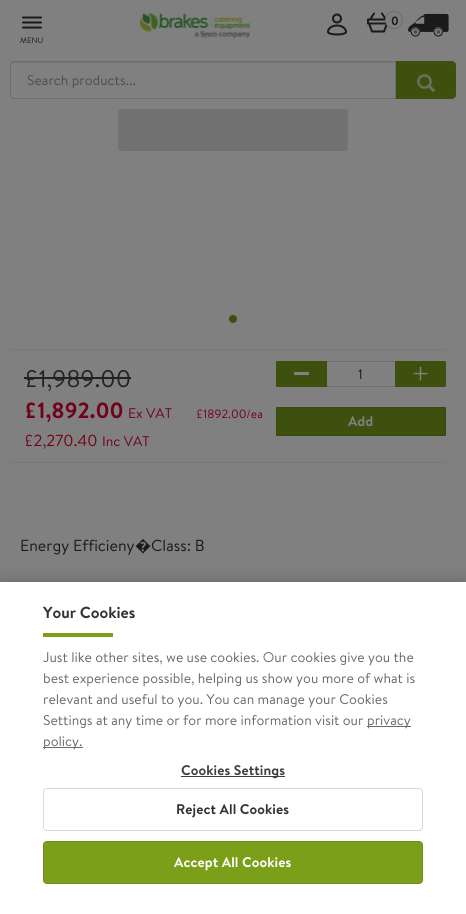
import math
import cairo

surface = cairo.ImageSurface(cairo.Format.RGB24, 466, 914)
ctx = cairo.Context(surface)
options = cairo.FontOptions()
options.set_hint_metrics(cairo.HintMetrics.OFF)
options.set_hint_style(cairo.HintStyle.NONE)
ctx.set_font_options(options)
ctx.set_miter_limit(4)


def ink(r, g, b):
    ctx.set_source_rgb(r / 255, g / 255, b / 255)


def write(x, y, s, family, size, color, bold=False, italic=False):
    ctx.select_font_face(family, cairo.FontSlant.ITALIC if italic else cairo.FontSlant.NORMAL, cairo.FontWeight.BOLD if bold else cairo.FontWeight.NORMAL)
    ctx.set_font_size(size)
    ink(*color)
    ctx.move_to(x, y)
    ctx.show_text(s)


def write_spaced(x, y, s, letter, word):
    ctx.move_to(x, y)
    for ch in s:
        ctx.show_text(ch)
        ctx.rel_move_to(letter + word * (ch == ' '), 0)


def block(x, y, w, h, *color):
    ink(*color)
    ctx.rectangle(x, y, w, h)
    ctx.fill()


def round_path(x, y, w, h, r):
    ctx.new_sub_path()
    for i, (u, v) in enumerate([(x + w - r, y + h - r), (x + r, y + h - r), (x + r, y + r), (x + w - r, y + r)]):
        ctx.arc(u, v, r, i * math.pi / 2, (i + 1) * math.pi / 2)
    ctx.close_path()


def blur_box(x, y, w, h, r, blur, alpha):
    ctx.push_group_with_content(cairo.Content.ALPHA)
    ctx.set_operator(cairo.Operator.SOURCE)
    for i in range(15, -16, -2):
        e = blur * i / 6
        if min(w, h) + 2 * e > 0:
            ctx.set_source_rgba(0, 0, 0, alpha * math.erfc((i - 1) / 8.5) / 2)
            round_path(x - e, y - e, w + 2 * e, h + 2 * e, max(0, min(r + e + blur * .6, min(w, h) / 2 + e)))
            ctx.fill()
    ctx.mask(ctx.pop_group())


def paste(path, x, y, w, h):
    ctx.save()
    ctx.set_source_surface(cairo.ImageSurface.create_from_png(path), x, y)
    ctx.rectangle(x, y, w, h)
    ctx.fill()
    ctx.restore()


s1 = dict(family="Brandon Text", size=12, color=(26, 26, 26), bold=True)
s2 = dict(family="Brandon Text", size=8, color=(26, 26, 26))
s3 = dict(family="Brandon Text", size=14, color=(77, 77, 77))
s4 = dict(family="Brandon Text", size=24, color=(34, 34, 34))
s5 = dict(family="Brandon Text", size=22, color=(114, 1, 27), bold=True)
s6 = dict(family="Brandon Text", size=14, color=(114, 1, 27))
s7 = dict(family="Brandon Text", size=16, color=(114, 1, 27))
s8 = dict(family="Brandon Text", size=12, color=(114, 1, 27))
s9 = dict(family="Brandon Text", size=14, color=(26, 26, 26))
s10 = dict(family="Brandon Text", size=14, color=(128, 128, 128), bold=True)
s11 = dict(family="Brandon Text", size=16, color=(26, 26, 26))
s12 = dict(family="Noto Sans", size=16, color=(26, 26, 26))
s13 = dict(family="Brandon Text", size=16, color=(51, 51, 51), bold=True)
s14 = dict(family="Brandon Text", size=14, color=(105, 105, 105))

ink(128, 128, 128)
ctx.paint()
ink(114, 114, 114)
round_path(118, 108, 230, 43, 3)
ctx.fill()
block(119, 108, 228, 1, 128, 128, 128)
paste("pic1.png", 139, 13, 111, 26)
paste("pic2.png", 327, 13, 20, 23)
paste("pic3.png", 367, 12, 21, 21)
ctx.arc(394, 20, 8.5, 0, 2 * math.pi)
ctx.fill_preserve()
ink(109, 109, 109)
ctx.set_line_width(1)
ctx.stroke()
write(391, 25, "0", **s1)
paste("pic4.png", 408, 13, 41, 24)
paste("pic5.png", 22, 16, 20, 13)
write(20, 43, "MENU", **s2)
ink(118, 118, 118)
ctx.new_path()
ctx.move_to(14, 63)
ctx.line_to(395, 63)
ctx.line_to(395, 62)
ctx.line_to(14, 62)
ctx.curve_to(12, 62, 11, 63, 11, 65)
ctx.line_to(11, 66)
ctx.curve_to(11, 64, 12, 63, 14, 63)
ctx.close_path()
ctx.fill()
ctx.new_path()
ctx.move_to(14, 61.5)
ctx.line_to(395.5, 61.5)
ctx.line_to(395.5, 98.5)
ctx.line_to(14, 98.5)
ctx.curve_to(12, 98.5, 10.5, 97, 10.5, 95)
ctx.line_to(10.5, 65)
ctx.curve_to(10.5, 63, 12, 61.5, 14, 61.5)
ctx.close_path()
ink(109, 109, 109)
ctx.stroke()
write(27, 85, "Search products...", **s3)
ink(62, 80, 13)
ctx.new_path()
ctx.move_to(396, 61)
ctx.line_to(452, 61)
ctx.curve_to(454, 61, 456, 63, 456, 65)
ctx.line_to(456, 95)
ctx.curve_to(456, 97, 454, 99, 452, 99)
ctx.line_to(396, 99)
ctx.close_path()
ctx.fill()
paste("pic6.png", 417, 74, 19, 18)
ctx.arc(233, 319, 4, 0, 2 * math.pi)
ctx.fill()
block(10, 349, 436, 1, 119, 119, 119)
write(24, 387, "£1,989.00", **s4)
block(24, 377, 107, 2, 34, 34, 34)
write(24, 418, "£1,892.00", **s5)
write(128, 418, "Ex VAT", **s6)
write(24, 446, "£2,270.40", **s7)
write(102, 446, "Inc VAT", **s6)
write(196, 418, "£1892.00/ea", **s8)
ink(62, 80, 13)
ctx.new_path()
ctx.move_to(277, 361)
ctx.line_to(327, 361)
ctx.line_to(327, 387)
ctx.line_to(277, 387)
ctx.curve_to(276.5, 387, 276, 386.5, 276, 386)
ctx.line_to(276, 362)
ctx.curve_to(276, 361.5, 276.5, 361, 277, 361)
ctx.close_path()
ctx.fill()
block(294, 372, 15, 3, 128, 128, 128)
block(327, 361, 68, 1, 109, 109, 109)
block(327, 386, 68, 1, 109, 109, 109)
write(358, 379, "1", **s9)
ink(62, 80, 13)
ctx.new_path()
ctx.move_to(395, 361)
ctx.line_to(445, 361)
ctx.curve_to(445.5, 361, 446, 361.5, 446, 362)
ctx.line_to(446, 386)
ctx.curve_to(446, 386.5, 445.5, 387, 445, 387)
ctx.line_to(395, 387)
ctx.close_path()
ctx.fill()
paste("pic7.png", 413, 366, 15, 15)
round_path(276.5, 407.5, 169, 28, 0.5)
ctx.fill_preserve()
ink(56, 71, 18)
ctx.stroke()
write(348, 426, "Add", **s10)
block(10, 462, 436, 1, 119, 119, 119)
write(20, 551, "Energy Efficieny", **s11)
write(135, 551, "�", **s12)
write(151, 551, "Class: B", **s11)
ink(0, 0, 0)
blur_box(0, 582, 466, 332, 0, 9, 0.2)
block(0, 582, 466, 332, 255, 255, 255)
write(43, 618, "Your Cookies", **s13)
block(43, 633, 70, 4, 124, 159, 25)
write(43, 662, "Just like other sites, we use cookies. Our cookies give you the", **s14)
write(43, 683, "best experience possible, helping us show you more of what is", **s14)
write(43, 704, "relevant and useful to you. You can manage your Cookies", **s14)
write(43, 725, "Settings at any time or for more information visit our", **s14)
block(367, 726, 44, 1, 105, 105, 105)
write(367, 725, "privacy", **s14)
block(43, 747, 40, 1, 105, 105, 105)
write(43, 746, "policy.", **s14)
block(181, 776, 104, 1, 64, 64, 64)
ctx.select_font_face("Brandon Text", cairo.FontSlant.NORMAL, cairo.FontWeight.BOLD)
write_spaced(181, 775, "Cookies Settings", 0.1, 0)
round_path(43.5, 788.5, 379, 42, 3.5)
ink(217, 217, 217)
ctx.stroke()
ink(51, 51, 51)
write_spaced(176, 814, "Reject All Cookies", 0.1, 0)
ink(124, 159, 25)
round_path(43.5, 841.5, 379, 42, 3.5)
ctx.fill_preserve()
ink(112, 141, 35)
ctx.stroke()
ink(255, 255, 255)
write_spaced(174, 867, "Accept All Cookies", 0.1, 0)
surface.write_to_png("screenshot.png")
